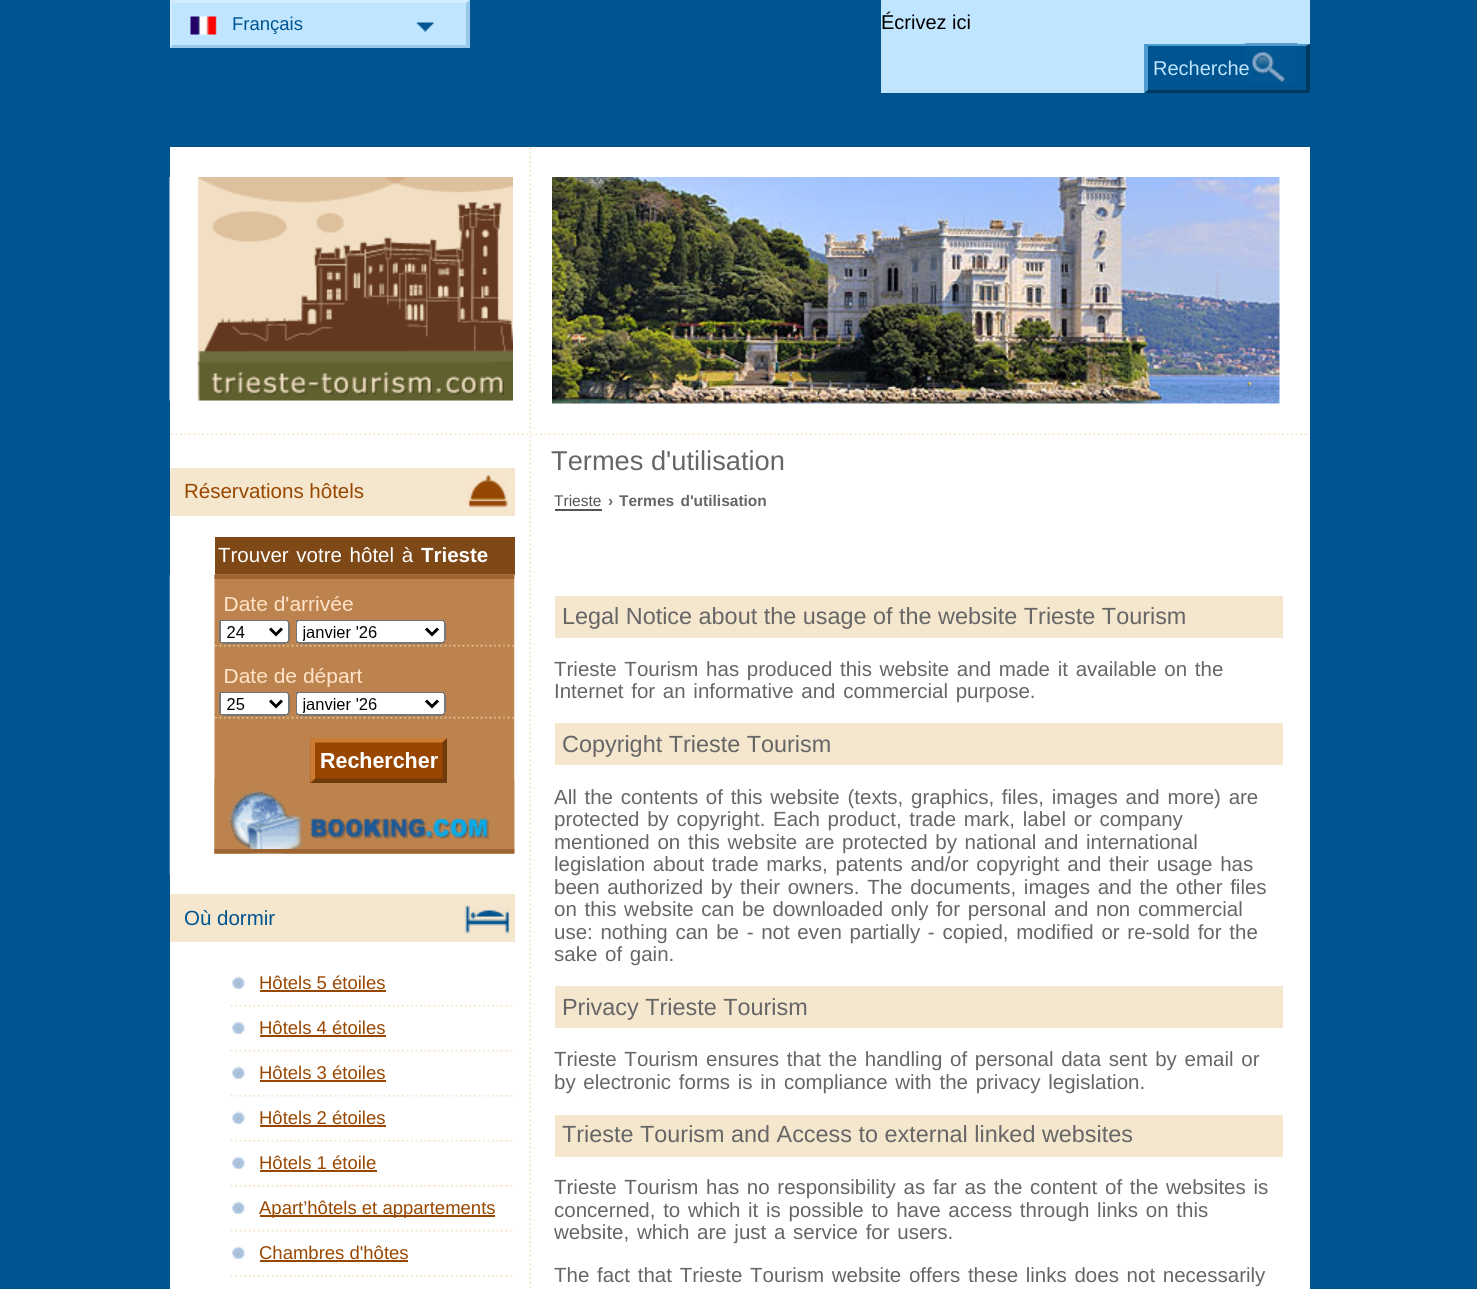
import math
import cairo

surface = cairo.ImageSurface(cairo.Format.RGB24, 1477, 1289)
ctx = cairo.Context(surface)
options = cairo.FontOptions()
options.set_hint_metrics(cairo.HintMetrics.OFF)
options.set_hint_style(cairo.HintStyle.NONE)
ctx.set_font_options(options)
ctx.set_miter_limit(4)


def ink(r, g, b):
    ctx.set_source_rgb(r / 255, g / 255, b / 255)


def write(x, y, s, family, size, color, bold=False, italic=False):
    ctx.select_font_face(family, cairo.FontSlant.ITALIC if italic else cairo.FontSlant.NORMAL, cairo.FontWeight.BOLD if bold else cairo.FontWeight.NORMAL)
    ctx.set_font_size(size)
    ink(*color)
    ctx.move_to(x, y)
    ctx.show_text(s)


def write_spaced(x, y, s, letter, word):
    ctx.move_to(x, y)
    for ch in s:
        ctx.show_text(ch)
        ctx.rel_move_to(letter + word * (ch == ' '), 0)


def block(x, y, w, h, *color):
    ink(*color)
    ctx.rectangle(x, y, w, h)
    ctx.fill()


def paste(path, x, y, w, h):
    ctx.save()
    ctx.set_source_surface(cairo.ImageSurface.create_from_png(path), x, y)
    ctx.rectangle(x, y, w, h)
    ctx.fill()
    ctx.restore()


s1 = dict(family="Liberation Sans", size=18.5, color=(0, 84, 143))
s2 = dict(family="Liberation Sans", size=20, color=(0, 0, 0))
s3 = dict(family="Liberation Sans", size=20, color=(191, 229, 255))
s4 = dict(family="Liberation Sans", size=27.25, color=(102, 102, 102))
s5 = dict(family="Liberation Sans", size=20.5, color=(153, 71, 0))
s6 = dict(family="Liberation Sans", size=20.5, color=(255, 255, 255), bold=True)
s7 = dict(family="Liberation Sans", size=20.5, color=(0, 84, 143))
s8 = dict(family="Liberation Sans", size=18.5, color=(153, 71, 0))
s9 = dict(family="Liberation Sans", size=15.5, color=(85, 85, 85))
s10 = dict(family="Liberation Sans", size=15.5, color=(102, 102, 102), bold=True)
s11 = dict(family="Liberation Sans", size=23.4, color=(102, 102, 102))

ink(0, 84, 143)
ctx.paint()
block(170, 0, 300, 48, 191, 229, 255)
paste("pic1.png", 416, 22, 18, 10)
paste("pic2.png", 190, 16, 27, 19)
ink(211, 237, 254)
ctx.new_path()
ctx.move_to(170, 0)
ctx.line_to(470, 0)
ctx.line_to(466, 3)
ctx.line_to(172, 3)
ctx.close_path()
ctx.fill()
ink(151, 200, 234)
ctx.new_path()
ctx.move_to(470, 0)
ctx.line_to(470, 48)
ctx.line_to(466, 45)
ctx.line_to(466, 3)
ctx.close_path()
ctx.fill()
ctx.new_path()
ctx.move_to(470, 48)
ctx.line_to(170, 48)
ctx.line_to(172, 45)
ctx.line_to(466, 45)
ctx.close_path()
ctx.fill()
ink(211, 237, 254)
ctx.new_path()
ctx.move_to(170, 48)
ctx.line_to(170, 0)
ctx.line_to(172, 3)
ctx.line_to(172, 45)
ctx.close_path()
ctx.fill()
write(232, 30, "Français", **s1)
block(881, 0, 429, 93, 191, 229, 255)
write(881, 29, "Écrivez ici", **s2)
block(1145, 44, 165, 49, 0, 84, 143)
paste("pic3.png", 1244, 43, 54, 40)
ink(77, 155, 207)
ctx.new_path()
ctx.move_to(1144, 44)
ctx.line_to(1310, 44)
ctx.line_to(1306, 46)
ctx.line_to(1148, 46)
ctx.close_path()
ctx.fill()
ink(0, 57, 95)
ctx.new_path()
ctx.move_to(1310, 44)
ctx.line_to(1310, 93)
ctx.line_to(1306, 90)
ctx.line_to(1306, 46)
ctx.close_path()
ctx.fill()
ctx.new_path()
ctx.move_to(1310, 93)
ctx.line_to(1144, 93)
ctx.line_to(1148, 90)
ctx.line_to(1306, 90)
ctx.close_path()
ctx.fill()
ink(77, 155, 207)
ctx.new_path()
ctx.move_to(1144, 93)
ctx.line_to(1144, 44)
ctx.line_to(1148, 46)
ctx.line_to(1148, 90)
ctx.close_path()
ctx.fill()
write(1153, 75, "Recherche", **s3)
block(170, 147, 1140, 1142, 255, 255, 255)
paste("pic4.png", 529, 147, 3, 1141)
paste("pic5.png", 170, 433, 1140, 3)
paste("pic6.png", 169, 177, 344, 224)
paste("pic7.png", 552, 177, 728, 227)
write(551, 470, "Termes d'utilisation", **s4)
block(170, 468, 345, 48, 245, 230, 206)
paste("pic8.png", 467, 475, 41, 33)
write(184, 498, "Réservations hôtels", **s5)
block(215, 537, 300, 38, 127, 72, 23)
ink(255, 255, 255)
write_spaced(218, 562, "Trouver votre hôtel à", 0, 2)
write(421, 562, "Trieste", **s6)
paste("pic9.png", 169, 574, 346, 301)
block(170, 894, 345, 48, 245, 230, 206)
paste("pic10.png", 464, 905, 46, 29)
write(184, 925, "Où dormir", **s7)
paste("pic11.png", 230, 1004, 285, 3)
paste("pic12.png", 232, 976, 13, 14)
write(259, 989, "Hôtels 5 étoiles", **s8)
block(260, 990, 126, 2, 153, 71, 0)
paste("pic11.png", 230, 1049, 285, 3)
paste("pic12.png", 232, 1021, 13, 14)
write(259, 1034, "Hôtels 4 étoiles", **s8)
block(260, 1035, 126, 2, 153, 71, 0)
paste("pic11.png", 230, 1094, 285, 3)
paste("pic12.png", 232, 1066, 13, 14)
write(259, 1079, "Hôtels 3 étoiles", **s8)
block(260, 1080, 126, 2, 153, 71, 0)
paste("pic11.png", 230, 1139, 285, 3)
paste("pic12.png", 232, 1111, 13, 14)
write(259, 1124, "Hôtels 2 étoiles", **s8)
block(260, 1125, 126, 2, 153, 71, 0)
paste("pic11.png", 230, 1184, 285, 3)
paste("pic12.png", 232, 1156, 13, 14)
write(259, 1169, "Hôtels 1 étoile", **s8)
block(260, 1170, 117, 2, 153, 71, 0)
paste("pic11.png", 230, 1229, 285, 3)
paste("pic12.png", 232, 1201, 13, 14)
block(260, 1215, 235, 2, 153, 71, 0)
write(259, 1214, "Apart’hôtels et appartements", **s8)
paste("pic11.png", 230, 1274, 285, 3)
paste("pic12.png", 232, 1246, 13, 14)
write(259, 1259, "Chambres d'hôtes", **s8)
block(260, 1260, 148, 2, 153, 71, 0)
write(554, 506, "Trieste", **s9)
block(555, 509, 47, 2, 85, 85, 85)
write(608, 506, "›", **s10)
write_spaced(619, 506, "Termes d'utilisation", 0, 2)
block(555, 596, 728, 42, 245, 230, 206)
write(562, 624, "Legal Notice about the usage of the website Trieste Tourism", **s11)
ctx.set_font_size(20.5)
write_spaced(554, 676, "Trieste Tourism has produced this website and made it available on the", 0, 2)
write_spaced(554, 698, "Internet for an informative and commercial purpose.", 0, 2)
block(555, 723, 728, 42, 245, 230, 206)
write(562, 752, "Copyright Trieste Tourism", **s11)
ctx.set_font_size(20.5)
write_spaced(554, 804, "All the contents of this website (texts, graphics, files, images and more) are", 0, 2)
write_spaced(554, 826, "protected by copyright. Each product, trade mark, label or company", 0, 2)
write_spaced(554, 849, "mentioned on this website are protected by national and international", 0, 2)
write_spaced(554, 871, "legislation about trade marks, patents and/or copyright and their usage has", 0, 2)
write_spaced(554, 894, "been authorized by their owners. The documents, images and the other files", 0, 2)
write_spaced(554, 916, "on this website can be downloaded only for personal and non commercial", 0, 2)
write_spaced(554, 939, "use: nothing can be - not even partially - copied, modified or re-sold for the", 0, 2)
write_spaced(554, 961, "sake of gain.", 0, 2)
block(555, 986, 728, 42, 245, 230, 206)
write(562, 1015, "Privacy Trieste Tourism", **s11)
ctx.set_font_size(20.5)
write_spaced(554, 1066, "Trieste Tourism ensures that the handling of personal data sent by email or", 0, 2)
write_spaced(554, 1089, "by electronic forms is in compliance with the privacy legislation.", 0, 2)
block(555, 1115, 728, 42, 245, 230, 206)
write(562, 1142, "Trieste Tourism and Access to external linked websites", **s11)
ctx.set_font_size(20.5)
write_spaced(554, 1194, "Trieste Tourism has no responsibility as far as the content of the websites is", 0, 2)
write_spaced(554, 1217, "concerned, to which it is possible to have access through links on this", 0, 2)
write_spaced(554, 1239, "website, which are just a service for users.", 0, 2)
write_spaced(554, 1282, "The fact that Trieste Tourism website offers these links does not necessarily", 0, 2)
surface.write_to_png("screenshot.png")
